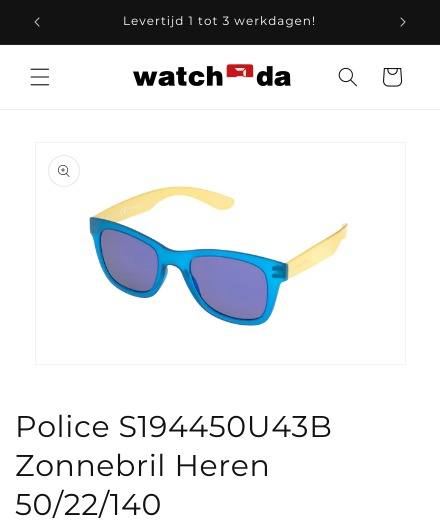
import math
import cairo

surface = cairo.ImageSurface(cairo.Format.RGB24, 440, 526)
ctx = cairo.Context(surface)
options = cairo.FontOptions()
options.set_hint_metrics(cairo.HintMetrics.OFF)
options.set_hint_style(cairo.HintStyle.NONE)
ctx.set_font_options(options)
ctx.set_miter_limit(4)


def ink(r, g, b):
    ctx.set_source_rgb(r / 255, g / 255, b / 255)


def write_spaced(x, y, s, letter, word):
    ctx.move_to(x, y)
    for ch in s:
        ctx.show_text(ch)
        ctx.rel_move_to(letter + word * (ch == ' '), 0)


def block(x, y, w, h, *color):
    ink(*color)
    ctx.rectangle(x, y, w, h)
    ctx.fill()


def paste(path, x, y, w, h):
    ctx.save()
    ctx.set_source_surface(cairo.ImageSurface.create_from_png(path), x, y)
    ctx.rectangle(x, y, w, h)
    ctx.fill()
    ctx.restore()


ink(255, 255, 255)
ctx.paint()
block(0, 0, 440, 44, 18, 18, 18)
block(0, 44, 440, 1, 37, 37, 37)
paste("pic1.png", 34, 17, 6, 10)
ctx.select_font_face("Montserrat")
ctx.set_font_size(12)
ink(255, 255, 255)
write_spaced(123, 25, "Levertijd 1 tot 3 werkdagen!", 1, 0)
paste("pic2.png", 400, 17, 6, 10)
block(0, 109, 440, 1, 236, 236, 236)
paste("pic3.png", 30, 68, 20, 18)
paste("pic4.png", 133, 64, 158, 22)
paste("pic5.png", 338, 67, 19, 20)
paste("pic6.png", 383, 68, 20, 19)
ctx.rectangle(35.5, 142.5, 370, 222)
ink(243, 243, 243)
ctx.set_line_width(1)
ctx.stroke()
ctx.arc(64, 171, 15.5, 0, 2 * math.pi)
ink(231, 231, 231)
ctx.stroke()
paste("pic7.png", 58, 165, 12, 12)
paste("pic8.png", 88, 184, 262, 145)
ctx.set_font_size(30)
ink(18, 18, 18)
write_spaced(15, 437, "Police S194450U43B", 0.6, 0)
write_spaced(15, 476, "Zonnebril Heren", 0.6, 0)
write_spaced(15, 515, "50/22/140", 0.6, 0)
surface.write_to_png("screenshot.png")
